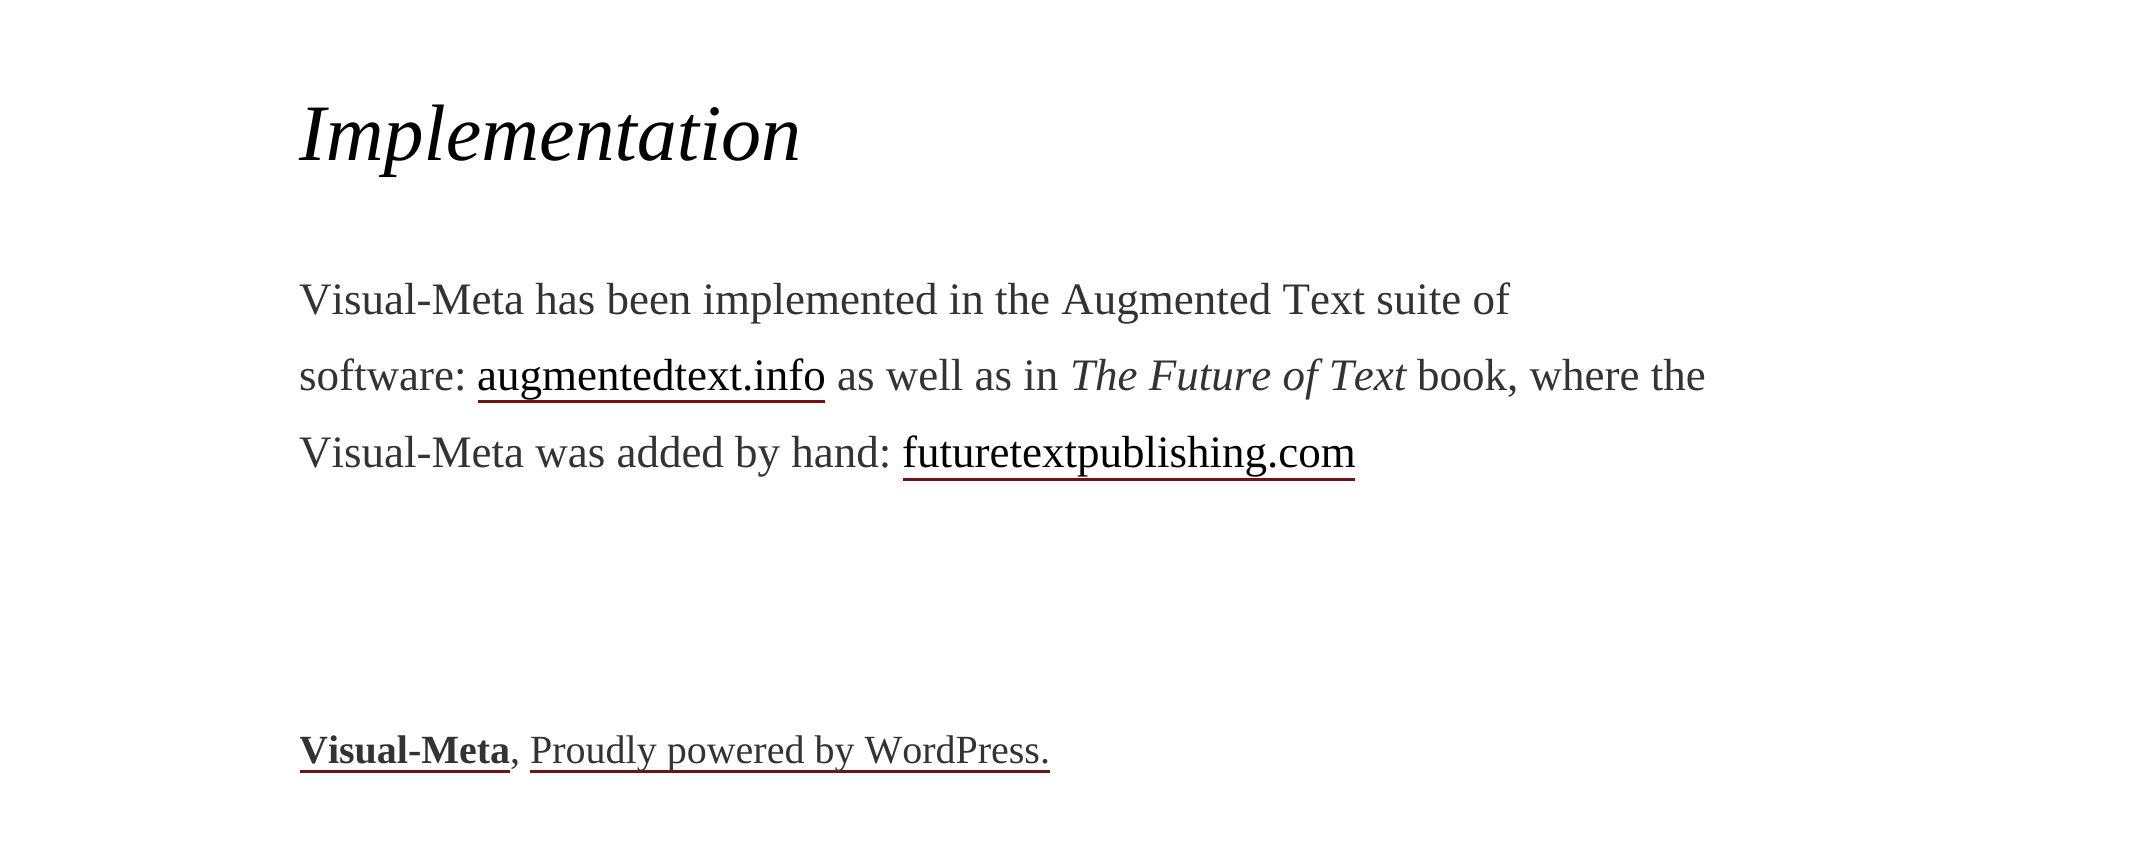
import math
import cairo

surface = cairo.ImageSurface(cairo.Format.RGB24, 2146, 860)
ctx = cairo.Context(surface)
options = cairo.FontOptions()
options.set_hint_metrics(cairo.HintMetrics.OFF)
options.set_hint_style(cairo.HintStyle.NONE)
ctx.set_font_options(options)
ctx.set_miter_limit(4)


def ink(r, g, b):
    ctx.set_source_rgb(r / 255, g / 255, b / 255)


def write(x, y, s, family, size, color, bold=False, italic=False):
    ctx.select_font_face(family, cairo.FontSlant.ITALIC if italic else cairo.FontSlant.NORMAL, cairo.FontWeight.BOLD if bold else cairo.FontWeight.NORMAL)
    ctx.set_font_size(size)
    ink(*color)
    ctx.move_to(x, y)
    ctx.show_text(s)


def block(x, y, w, h, *color):
    ink(*color)
    ctx.rectangle(x, y, w, h)
    ctx.fill()


s1 = dict(family="Liberation Serif", size=80, color=(0, 0, 0), italic=True)
s2 = dict(family="Liberation Serif", size=45, color=(51, 51, 51))
s3 = dict(family="Liberation Serif", size=45, color=(0, 0, 0))
s4 = dict(family="Liberation Serif", size=45, color=(51, 51, 51), italic=True)
s5 = dict(family="Liberation Serif", size=40, color=(51, 51, 51), bold=True)
s6 = dict(family="Liberation Serif", size=40, color=(51, 51, 51))

ink(255, 255, 255)
ctx.paint()
write(299, 160, "Implementation", **s1)
write(299, 314, "Visual-Meta has been implemented in the Augmented Text suite of", **s2)
write(299, 390, "software:", **s2)
write(477, 390, "augmentedtext.info", **s3)
block(478, 400, 347, 3, 114, 18, 18)
write(837, 390, "as well as in", **s2)
write(1070, 390, "The Future of Text", **s4)
write(1417, 390, "book, where the", **s2)
write(299, 467, "Visual-Meta was added by hand:", **s2)
write(902, 467, "futuretextpublishing.com", **s3)
block(903, 478, 452, 3, 114, 18, 18)
ctx.save()
ctx.rectangle(300, 565, 1550, 295)
ctx.clip()
write(299, 763, "Visual-Meta", **s5)
ctx.restore()
block(300, 770, 210, 3, 114, 18, 18)
write(510, 763, ",", **s6)
block(530, 770, 520, 3, 114, 18, 18)
write(530, 763, "Proudly powered by WordPress.", **s6)
surface.write_to_png("screenshot.png")
